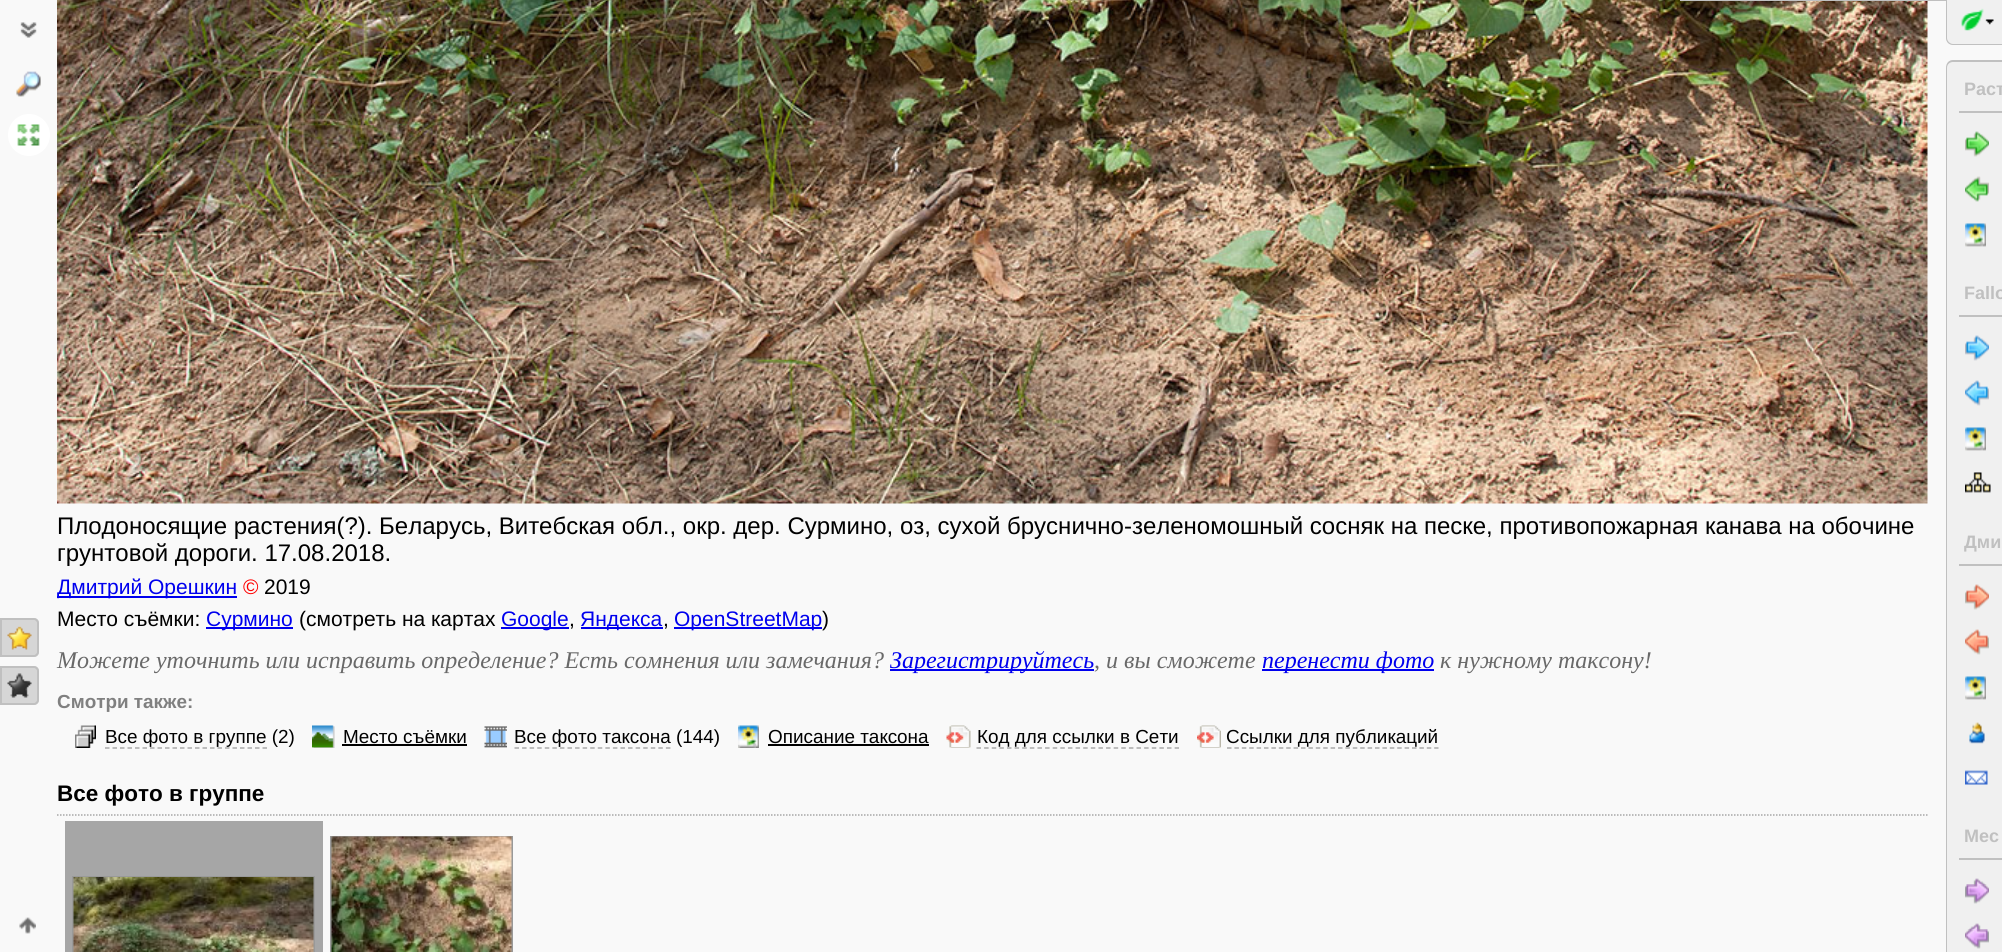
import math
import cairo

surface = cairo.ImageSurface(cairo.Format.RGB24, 2002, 952)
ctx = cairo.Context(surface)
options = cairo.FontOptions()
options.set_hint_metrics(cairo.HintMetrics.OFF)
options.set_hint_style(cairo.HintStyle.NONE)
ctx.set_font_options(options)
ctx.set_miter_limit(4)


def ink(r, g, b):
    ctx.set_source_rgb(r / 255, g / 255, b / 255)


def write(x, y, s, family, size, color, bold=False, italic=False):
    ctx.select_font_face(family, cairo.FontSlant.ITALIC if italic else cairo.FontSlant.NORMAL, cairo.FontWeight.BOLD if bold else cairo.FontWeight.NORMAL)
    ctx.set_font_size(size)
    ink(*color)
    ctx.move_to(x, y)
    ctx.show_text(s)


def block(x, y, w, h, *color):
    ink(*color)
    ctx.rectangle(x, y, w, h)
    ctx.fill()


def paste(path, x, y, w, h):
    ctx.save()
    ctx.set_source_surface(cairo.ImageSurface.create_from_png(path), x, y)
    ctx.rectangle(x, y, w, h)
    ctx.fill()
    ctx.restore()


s1 = dict(family="Liberation Sans", size=24, color=(0, 0, 0))
s2 = dict(family="Liberation Sans", size=21, color=(0, 0, 238))
s3 = dict(family="Liberation Sans", size=21, color=(255, 0, 0))
s4 = dict(family="Liberation Sans", size=21, color=(0, 0, 0))
s5 = dict(family="Liberation Serif", size=24, color=(105, 105, 105), italic=True)
s6 = dict(family="Liberation Serif", size=24, color=(0, 0, 238), italic=True)
s7 = dict(family="Liberation Sans", size=18.9, color=(128, 128, 128), bold=True)
s8 = dict(family="Liberation Sans", size=18.9, color=(0, 0, 0))
s9 = dict(family="Liberation Sans", size=22.5, color=(0, 0, 0), bold=True)
s10 = dict(family="Liberation Sans", size=18, color=(192, 192, 192), bold=True)

ink(249, 249, 249)
ctx.paint()
paste("pic1.png", 20, 22, 17, 16)
paste("pic2.png", 16, 71, 25, 26)
ink(255, 255, 255)
ctx.arc(29, 135, 21, 0, 2 * math.pi)
ctx.fill()
paste("pic3.png", 17, 124, 23, 22)
ink(214, 214, 214)
ctx.new_path()
ctx.move_to(0, 618)
ctx.line_to(34, 618)
ctx.curve_to(37, 618, 39, 620, 39, 623)
ctx.line_to(39, 652)
ctx.curve_to(39, 655, 37, 657, 34, 657)
ctx.line_to(0, 657)
ctx.close_path()
ctx.fill()
paste("pic4.png", 7, 626, 25, 24)
ctx.new_path()
ctx.move_to(1, 619)
ctx.line_to(34, 619)
ctx.curve_to(36, 619, 38, 621, 38, 623)
ctx.line_to(38, 652)
ctx.curve_to(38, 654, 36, 656, 34, 656)
ctx.line_to(1, 656)
ctx.close_path()
ink(192, 192, 192)
ctx.stroke()
ink(214, 214, 214)
ctx.new_path()
ctx.move_to(0, 666)
ctx.line_to(34, 666)
ctx.curve_to(37, 666, 39, 668, 39, 671)
ctx.line_to(39, 700)
ctx.curve_to(39, 703, 37, 705, 34, 705)
ctx.line_to(0, 705)
ctx.close_path()
ctx.fill()
paste("pic5.png", 7, 673, 25, 25)
ctx.new_path()
ctx.move_to(1, 667)
ctx.line_to(34, 667)
ctx.curve_to(36, 667, 38, 669, 38, 671)
ctx.line_to(38, 700)
ctx.curve_to(38, 702, 36, 704, 34, 704)
ctx.line_to(1, 704)
ctx.close_path()
ink(192, 192, 192)
ctx.stroke()
paste("pic6.png", 57, 0, 1871, 504)
write(57, 534, "Плодоносящие растения(?). Беларусь, Витебская обл., окр. дер. Сурмино, оз, сухой бруснично-зеленомошный сосняк на песке, противопожарная канава на обочине", **s1)
write(57, 561, "грунтовой дороги. 17.08.2018.", **s1)
block(57, 596, 180, 2, 0, 0, 238)
write(57, 594, "Дмитрий Орешкин", **s2)
write(243, 594, "©", **s3)
write(264, 594, "2019", **s4)
write(57, 626, "Место съёмки:", **s4)
block(206, 627, 87, 2, 0, 0, 238)
write(206, 626, "Сурмино", **s2)
write(299, 626, "(смотреть на картах", **s4)
block(501, 627, 68, 2, 0, 0, 238)
write(501, 626, "Google", **s2)
write(569, 626, ",", **s4)
block(581, 627, 82, 2, 0, 0, 238)
write(580, 626, "Яндекса", **s2)
write(663, 626, ",", **s4)
block(674, 627, 148, 2, 0, 0, 238)
write(674, 626, "OpenStreetMap", **s2)
write(822, 626, ")", **s4)
write(57, 668, "Можете уточнить или исправить определение? Есть сомнения или замечания?", **s5)
block(890, 669, 204, 2, 0, 0, 238)
write(890, 668, "Зарегистрируйтесь", **s6)
write(1094, 668, ", и вы сможете", **s5)
block(1262, 669, 172, 2, 0, 0, 238)
write(1262, 668, "перенести фото", **s6)
write(1440, 668, "к нужному таксону!", **s5)
write(57, 708, "Смотри также:", **s7)
paste("pic7.png", 75, 725, 21, 23)
write(105, 743, "Все фото в группе (2)", **s8)
ctx.new_path()
ctx.move_to(105, 748)
ctx.line_to(267, 748)
ink(169, 169, 169)
ctx.set_line_width(1.5)
ctx.set_dash([4.5, 3])
ctx.stroke()
paste("pic8.png", 312, 725, 23, 23)
write(343, 743, "Место съёмки", **s8)
block(342, 744, 125, 2, 0, 0, 0)
paste("pic9.png", 484, 726, 23, 22)
write(514, 743, "Все фото таксона (144)", **s8)
ctx.new_path()
ctx.move_to(514.5, 748)
ctx.line_to(670.5, 748)
ink(169, 169, 169)
ctx.set_dash([4.5, 3.07])
ctx.stroke()
paste("pic10.png", 738, 725, 21, 23)
write(768, 743, "Описание таксона", **s8)
block(768, 744, 161, 2, 0, 0, 0)
paste("pic11.png", 946, 725, 25, 23)
write(977, 743, "Код для ссылки в Сети", **s8)
ctx.new_path()
ctx.move_to(976.5, 748)
ctx.line_to(1179, 748)
ink(169, 169, 169)
ctx.set_dash([4.5, 3.12])
ctx.stroke()
paste("pic12.png", 1197, 725, 24, 23)
write(1226, 743, "Ссылки для публикаций", **s8)
ctx.new_path()
ctx.move_to(1227, 748)
ctx.line_to(1438.5, 748)
ink(169, 169, 169)
ctx.set_dash([4.5, 2.9])
ctx.stroke()
ctx.new_path()
ctx.move_to(57, 815)
ctx.line_to(1927.5, 815)
ink(166, 166, 166)
ctx.set_dash([1.5, 1.5])
ctx.stroke()
write(57, 801, "Все фото в группе", **s9)
block(65, 821, 258, 131, 166, 166, 166)
ctx.rectangle(73, 877, 241, 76)
ink(153, 153, 153)
ctx.set_line_width(2)
ctx.set_dash([])
ctx.stroke()
paste("pic13.png", 73, 877, 241, 75)
ctx.rectangle(331, 837, 181, 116)
ctx.stroke()
paste("pic14.png", 331, 836, 181, 116)
block(1680, 0, 266, 1, 192, 192, 192)
ink(240, 240, 240)
ctx.new_path()
ctx.move_to(1946, 0)
ctx.line_to(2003, 0)
ctx.line_to(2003, 45)
ctx.line_to(1954, 45)
ctx.curve_to(1949.5, 45, 1946, 41.5, 1946, 37)
ctx.close_path()
ctx.fill()
paste("pic15.png", 1961, 8, 23, 23)
ink(192, 192, 192)
ctx.set_fill_rule(cairo.FillRule.EVEN_ODD)
ctx.new_path()
ctx.move_to(1946, 0)
ctx.line_to(2002, 0)
ctx.line_to(2002, 45)
ctx.line_to(1953, 45)
ctx.curve_to(1949, 45, 1946, 42, 1946, 38)
ctx.close_path()
ctx.move_to(1947, 0)
ctx.line_to(2002, 0)
ctx.line_to(2002, 44)
ctx.line_to(1953, 44)
ctx.curve_to(1950, 44, 1947, 41, 1947, 38)
ctx.close_path()
ctx.fill()
paste("pic16.png", 1985, 19, 9, 6)
ink(240, 240, 240)
ctx.new_path()
ctx.move_to(1954, 60)
ctx.line_to(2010, 60)
ctx.line_to(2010, 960)
ctx.line_to(1954, 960)
ctx.curve_to(1949.5, 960, 1946, 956.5, 1946, 952)
ctx.line_to(1946, 68)
ctx.curve_to(1946, 63.5, 1949.5, 60, 1954, 60)
ctx.close_path()
ctx.fill()
ink(192, 192, 192)
ctx.new_path()
ctx.move_to(1953, 60)
ctx.line_to(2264, 60)
ctx.line_to(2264, 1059)
ctx.line_to(1953, 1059)
ctx.curve_to(1949, 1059, 1946, 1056, 1946, 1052)
ctx.line_to(1946, 68)
ctx.curve_to(1946, 63, 1949, 60, 1953, 60)
ctx.close_path()
ctx.move_to(1953, 62)
ctx.line_to(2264, 62)
ctx.line_to(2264, 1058)
ctx.line_to(1953, 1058)
ctx.curve_to(1950, 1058, 1947, 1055, 1947, 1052)
ctx.line_to(1947, 68)
ctx.curve_to(1947, 64, 1950, 62, 1953, 62)
ctx.close_path()
ctx.fill()
block(1959, 111, 43, 2, 192, 192, 192)
write(1964, 95, "Раст", **s10)
paste("pic17.png", 1965, 131, 24, 26)
paste("pic18.png", 1965, 176, 24, 26)
paste("pic19.png", 1965, 223, 21, 24)
block(1959, 315, 43, 2, 192, 192, 192)
write(1964, 299, "Fallo", **s10)
paste("pic20.png", 1965, 335, 24, 26)
paste("pic21.png", 1965, 380, 24, 26)
paste("pic19.png", 1965, 427, 21, 24)
paste("pic22.png", 1965, 472, 26, 21)
block(1959, 564, 43, 2, 192, 192, 192)
write(1964, 548, "Дми", **s10)
paste("pic23.png", 1965, 584, 24, 26)
paste("pic24.png", 1965, 629, 24, 26)
paste("pic19.png", 1965, 676, 21, 24)
paste("pic25.png", 1969, 722, 16, 22)
paste("pic26.png", 1965, 770, 23, 15)
block(1959, 858, 43, 2, 192, 192, 192)
write(1964, 842, "Мес", **s10)
paste("pic27.png", 1965, 878, 24, 26)
paste("pic28.png", 1965, 923, 24, 26)
paste("pic29.png", 19, 917, 17, 17)
surface.write_to_png("screenshot.png")
